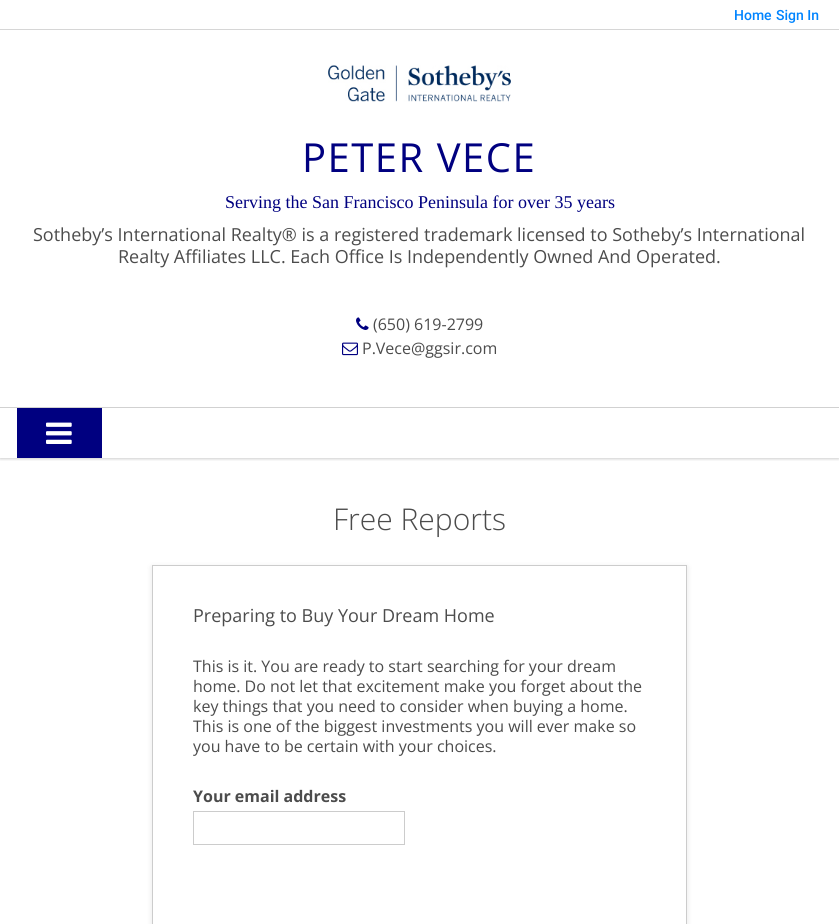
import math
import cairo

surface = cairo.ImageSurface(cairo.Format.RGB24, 839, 924)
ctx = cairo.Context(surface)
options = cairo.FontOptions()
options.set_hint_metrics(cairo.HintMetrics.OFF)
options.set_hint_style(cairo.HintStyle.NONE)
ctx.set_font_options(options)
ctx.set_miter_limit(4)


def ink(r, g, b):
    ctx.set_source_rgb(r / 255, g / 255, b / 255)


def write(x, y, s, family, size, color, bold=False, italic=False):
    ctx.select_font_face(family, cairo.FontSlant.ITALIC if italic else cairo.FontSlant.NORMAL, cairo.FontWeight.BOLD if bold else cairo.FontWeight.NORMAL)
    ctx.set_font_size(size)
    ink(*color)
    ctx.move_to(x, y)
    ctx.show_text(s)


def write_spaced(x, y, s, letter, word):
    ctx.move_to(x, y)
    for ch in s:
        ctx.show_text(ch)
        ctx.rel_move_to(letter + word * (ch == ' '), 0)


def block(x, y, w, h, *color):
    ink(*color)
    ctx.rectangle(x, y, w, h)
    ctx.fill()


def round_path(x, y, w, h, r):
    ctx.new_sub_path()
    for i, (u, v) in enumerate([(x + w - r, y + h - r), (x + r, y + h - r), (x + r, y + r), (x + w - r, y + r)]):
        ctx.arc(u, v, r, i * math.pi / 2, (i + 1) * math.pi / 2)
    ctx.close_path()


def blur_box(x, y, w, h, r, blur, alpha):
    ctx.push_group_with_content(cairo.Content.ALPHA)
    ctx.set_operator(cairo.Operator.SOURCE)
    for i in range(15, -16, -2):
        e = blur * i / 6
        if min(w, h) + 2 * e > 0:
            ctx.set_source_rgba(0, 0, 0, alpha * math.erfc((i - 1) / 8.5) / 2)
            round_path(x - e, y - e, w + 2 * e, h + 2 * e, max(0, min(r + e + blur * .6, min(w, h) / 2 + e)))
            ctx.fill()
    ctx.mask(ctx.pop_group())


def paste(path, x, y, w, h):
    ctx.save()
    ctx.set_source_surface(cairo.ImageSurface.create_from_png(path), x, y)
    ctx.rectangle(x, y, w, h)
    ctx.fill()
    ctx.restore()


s1 = dict(family="Roboto Medium", size=14, color=(0, 132, 255))
s2 = dict(family="Liberation Serif", size=18, color=(0, 0, 128))
s3 = dict(family="Open Sans", size=18, color=(76, 76, 76))
s4 = dict(family="Open Sans", size=16, color=(76, 76, 76))
s5 = dict(family="Open Sans Light", size=30, color=(76, 76, 76))
s6 = dict(family="Open Sans", size=16, color=(76, 76, 76), bold=True)

ink(255, 255, 255)
ctx.paint()
ctx.save()
ctx.rectangle(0, 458, 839, 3)
ctx.clip()
ink(0, 0, 0)
blur_box(0, 31, 839, 428, 0, 1.5, 0.2)
ctx.restore()
block(0, 29, 839, 1, 214, 214, 214)
write(734, 20, "Home", **s1)
write(776, 20, "Sign In", **s1)
paste("pic1.png", 328, 65, 183, 37)
ctx.select_font_face("Open Sans")
ctx.set_font_size(40)
ink(0, 0, 128)
write_spaced(302, 172, "PETER VECE", 1.5, 0)
write(225, 208, "Serving the San Francisco Peninsula for over 35 years", **s2)
write(33, 241, "Sotheby’s International Realty® is a registered trademark licensed to Sotheby’s International", **s3)
write(118, 263, "Realty Affiliates LLC. Each Office Is Independently Owned And Operated.", **s3)
paste("pic2.png", 356, 317, 13, 13)
write(373, 330, "(650) 619-2799", **s4)
paste("pic3.png", 342, 342, 16, 14)
write(362, 354, "P.Vece@ggsir.com", **s4)
block(0, 407, 839, 1, 209, 209, 209)
block(17, 408, 85, 50, 0, 0, 128)
paste("pic4.png", 46, 422, 26, 22)
write(333, 530, "Free Reports", **s5)
ctx.save()
ctx.set_fill_rule(cairo.FillRule.EVEN_ODD)
ctx.new_path()
ctx.move_to(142, 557)
ctx.line_to(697, 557)
ctx.line_to(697, 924)
ctx.line_to(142, 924)
ctx.close_path()
ctx.move_to(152, 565)
ctx.line_to(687, 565)
ctx.line_to(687, 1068)
ctx.line_to(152, 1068)
ctx.close_path()
ctx.clip()
ink(0, 0, 0)
blur_box(152, 567, 535, 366, 0, 3, 0.1)
ctx.restore()
ctx.rectangle(152.5, 565.5, 534, 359)
ink(204, 204, 204)
ctx.set_line_width(1)
ctx.stroke()
write(193, 622, "Preparing to Buy Your Dream Home", **s3)
write(193, 672, "This is it. You are ready to start searching for your dream", **s4)
write(193, 692, "home. Do not let that excitement make you forget about the", **s4)
write(193, 712, "key things that you need to consider when buying a home.", **s4)
write(193, 732, "This is one of the biggest investments you will ever make so", **s4)
write(193, 752, "you have to be certain with your choices.", **s4)
write(193, 802, "Your email address", **s6)
ctx.rectangle(193.5, 811.5, 211, 33)
ink(204, 204, 204)
ctx.stroke()
surface.write_to_png("screenshot.png")
